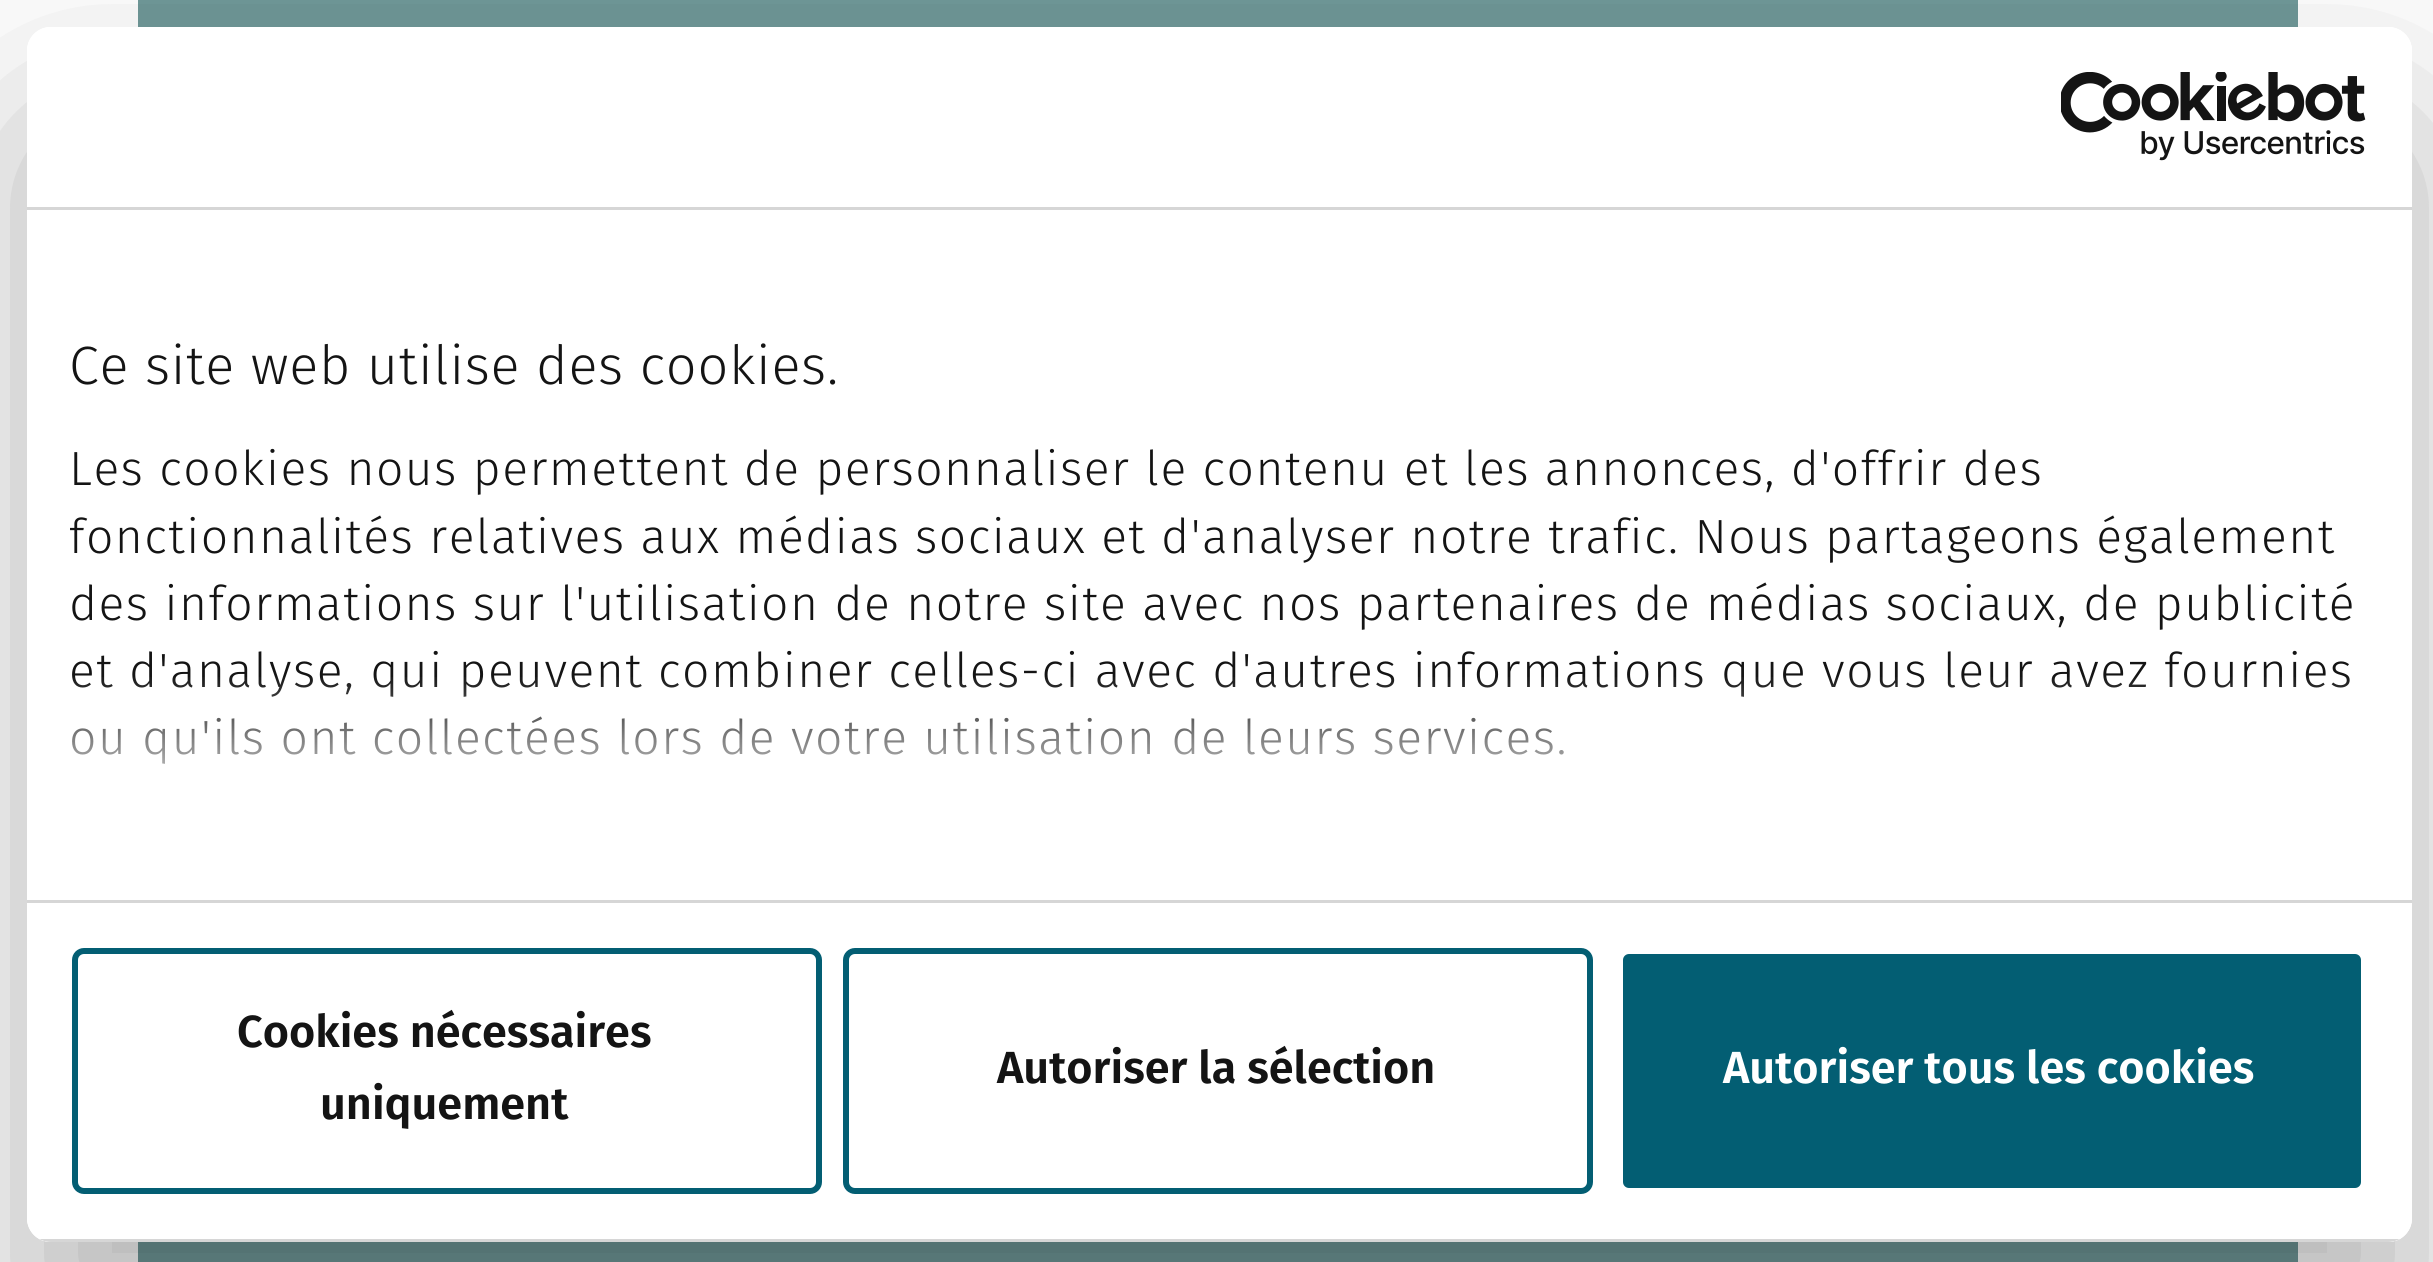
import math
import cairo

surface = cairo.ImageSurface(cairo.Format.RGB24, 2433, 1262)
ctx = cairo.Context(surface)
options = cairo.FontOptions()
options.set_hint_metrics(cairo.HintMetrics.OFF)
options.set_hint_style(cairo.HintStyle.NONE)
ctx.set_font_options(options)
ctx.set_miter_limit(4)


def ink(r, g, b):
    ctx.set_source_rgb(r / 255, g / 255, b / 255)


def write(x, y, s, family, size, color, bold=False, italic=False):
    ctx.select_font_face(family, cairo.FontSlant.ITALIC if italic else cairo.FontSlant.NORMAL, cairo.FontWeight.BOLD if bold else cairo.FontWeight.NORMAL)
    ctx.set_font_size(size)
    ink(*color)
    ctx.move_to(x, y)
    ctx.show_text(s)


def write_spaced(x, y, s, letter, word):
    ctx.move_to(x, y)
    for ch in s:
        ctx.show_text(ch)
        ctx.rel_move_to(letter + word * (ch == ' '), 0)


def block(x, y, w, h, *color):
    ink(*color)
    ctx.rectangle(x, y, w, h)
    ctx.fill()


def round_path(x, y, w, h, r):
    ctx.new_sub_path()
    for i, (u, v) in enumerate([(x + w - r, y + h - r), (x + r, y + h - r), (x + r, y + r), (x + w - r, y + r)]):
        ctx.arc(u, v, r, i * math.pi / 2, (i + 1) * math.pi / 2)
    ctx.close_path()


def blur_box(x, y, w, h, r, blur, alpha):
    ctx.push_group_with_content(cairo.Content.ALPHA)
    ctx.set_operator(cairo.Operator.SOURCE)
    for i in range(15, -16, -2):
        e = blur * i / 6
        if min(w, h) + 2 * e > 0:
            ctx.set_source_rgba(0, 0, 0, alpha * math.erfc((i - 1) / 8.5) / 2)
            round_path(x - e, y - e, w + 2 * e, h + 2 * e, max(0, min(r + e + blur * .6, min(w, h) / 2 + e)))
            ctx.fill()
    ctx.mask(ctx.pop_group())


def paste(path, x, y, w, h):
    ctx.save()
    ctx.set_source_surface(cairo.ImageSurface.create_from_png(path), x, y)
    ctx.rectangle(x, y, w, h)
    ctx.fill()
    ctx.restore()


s1 = dict(family="Fira Sans SemiBold", size=45, color=(20, 20, 20))
s2 = dict(family="Fira Sans SemiBold", size=45, color=(255, 255, 255))

ink(255, 255, 255)
ctx.paint()
block(138, 0, 2160, 27, 112, 153, 153)
block(138, 1242, 2160, 20, 112, 153, 153)
ctx.save()
ctx.set_fill_rule(cairo.FillRule.EVEN_ODD)
ctx.new_path()
ctx.move_to(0, 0)
ctx.line_to(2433, 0)
ctx.line_to(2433, 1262)
ctx.line_to(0, 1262)
ctx.close_path()
ctx.move_to(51, 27)
ctx.line_to(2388, 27)
ctx.curve_to(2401.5, 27, 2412, 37.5, 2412, 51)
ctx.line_to(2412, 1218)
ctx.curve_to(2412, 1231.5, 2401.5, 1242, 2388, 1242)
ctx.line_to(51, 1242)
ctx.curve_to(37.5, 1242, 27, 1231.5, 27, 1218)
ctx.line_to(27, 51)
ctx.curve_to(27, 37.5, 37.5, 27, 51, 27)
ctx.close_path()
ctx.clip()
ink(0, 0, 0)
blur_box(27, 123, 2385, 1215, 24, 102, 0.3)
ctx.restore()
ink(255, 255, 255)
round_path(27, 27, 2385, 1215, 24)
ctx.fill()
block(27, 207, 2385, 3, 214, 214, 214)
paste("pic1.png", 2061, 72, 305, 89)
block(27, 900, 2385, 3, 214, 214, 214)
ctx.select_font_face("Fira Sans Light")
ctx.set_font_size(54)
ink(20, 20, 20)
write_spaced(69, 384, "Ce site web utilise des cookies.", 0.75, 0)
ctx.set_font_size(48)
write_spaced(69, 485, "Les cookies nous permettent de personnaliser le contenu et les annonces, d'offrir des", 1.5, 0)
write_spaced(69, 553, "fonctionnalités relatives aux médias sociaux et d'analyser notre trafic. Nous partageons également", 1.5, 0)
write_spaced(69, 620, "des informations sur l'utilisation de notre site avec nos partenaires de médias sociaux, de publicité", 1.5, 0)
write_spaced(69, 687, "et d'analyse, qui peuvent combiner celles-ci avec d'autres informations que vous leur avez fournies", 1.5, 0)
write_spaced(69, 754, "ou qu'ils ont collectées lors de votre utilisation de leurs services.", 1.5, 0)
gradient = cairo.LinearGradient(1199, 899, 1199, 674)
gradient.add_color_stop_rgba(0, 1, 1, 1, 1)
gradient.add_color_stop_rgba(0.5, 1, 1, 1, 0.8)
gradient.add_color_stop_rgba(1, 1, 1, 1, 0)
ctx.set_source(gradient)
ctx.rectangle(72, 677, 2278, 87)
ctx.fill()
ctx.save()
round_path(27, 27, 2385, 1215, 24)
ctx.clip()
block(39, 1239, 2361, 3, 214, 214, 214)
ctx.restore()
round_path(75, 951, 744, 240, 9)
ink(3, 94, 115)
ctx.set_line_width(6)
ctx.stroke()
write(237, 1047, "Cookies nécessaires", **s1)
write(320, 1119, "uniquement", **s1)
round_path(846, 951, 744, 240, 9)
ink(3, 94, 115)
ctx.stroke()
write(997, 1083, "Autoriser la sélection", **s1)
ink(3, 94, 115)
round_path(1620, 951, 744, 240, 9)
ctx.fill_preserve()
ink(255, 255, 255)
ctx.stroke()
write(1723, 1083, "Autoriser tous les cookies", **s2)
surface.write_to_png("screenshot.png")
